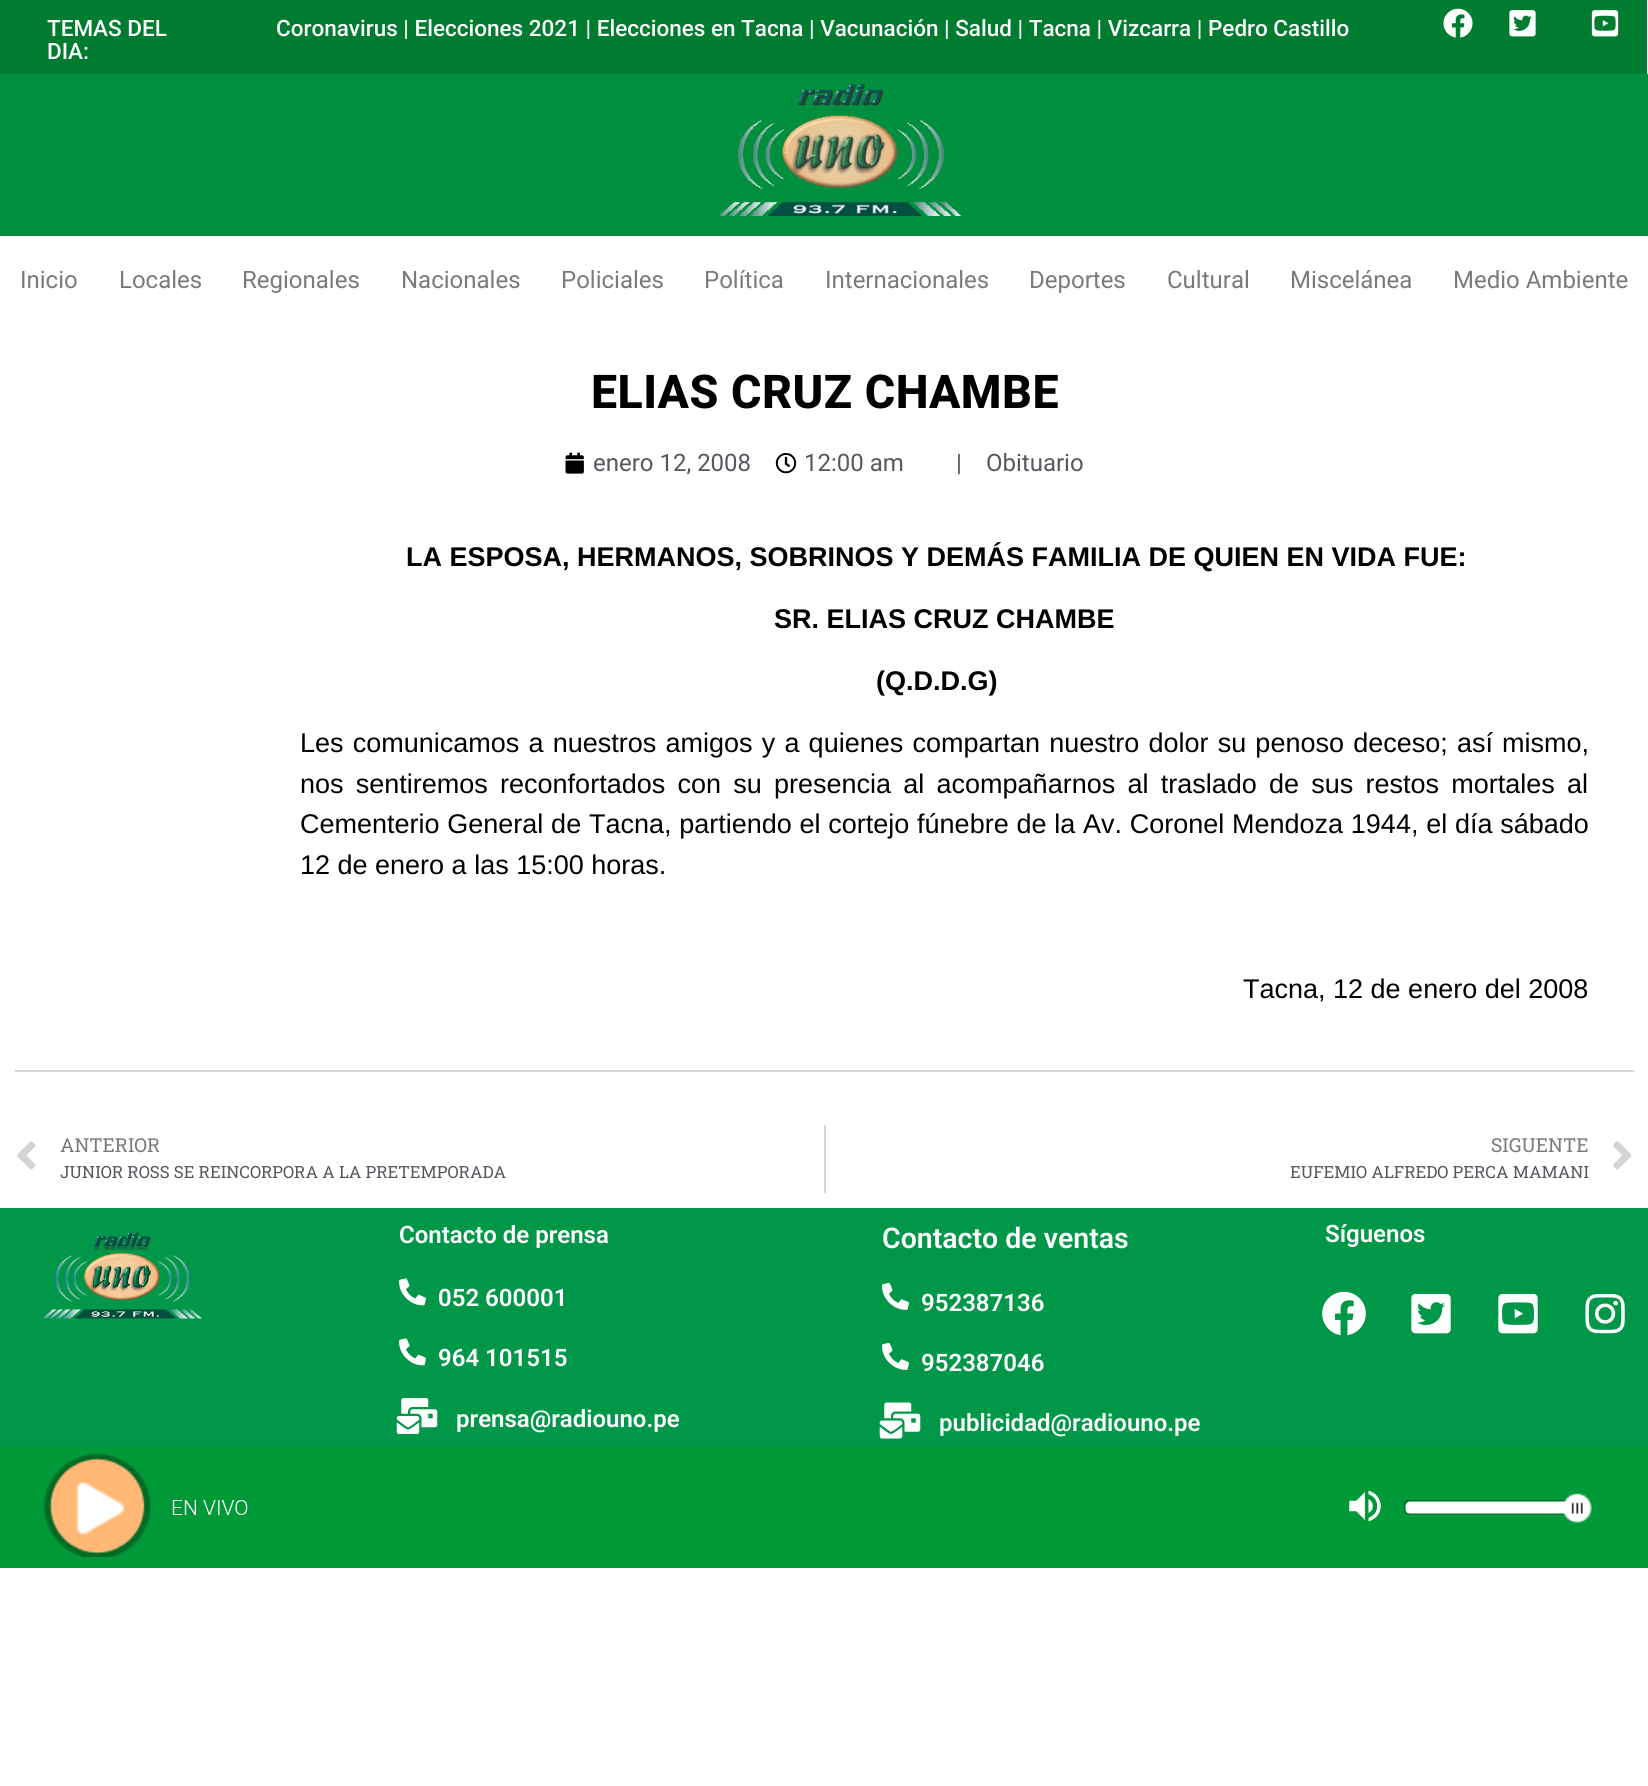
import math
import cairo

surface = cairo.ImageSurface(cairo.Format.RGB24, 1648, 1786)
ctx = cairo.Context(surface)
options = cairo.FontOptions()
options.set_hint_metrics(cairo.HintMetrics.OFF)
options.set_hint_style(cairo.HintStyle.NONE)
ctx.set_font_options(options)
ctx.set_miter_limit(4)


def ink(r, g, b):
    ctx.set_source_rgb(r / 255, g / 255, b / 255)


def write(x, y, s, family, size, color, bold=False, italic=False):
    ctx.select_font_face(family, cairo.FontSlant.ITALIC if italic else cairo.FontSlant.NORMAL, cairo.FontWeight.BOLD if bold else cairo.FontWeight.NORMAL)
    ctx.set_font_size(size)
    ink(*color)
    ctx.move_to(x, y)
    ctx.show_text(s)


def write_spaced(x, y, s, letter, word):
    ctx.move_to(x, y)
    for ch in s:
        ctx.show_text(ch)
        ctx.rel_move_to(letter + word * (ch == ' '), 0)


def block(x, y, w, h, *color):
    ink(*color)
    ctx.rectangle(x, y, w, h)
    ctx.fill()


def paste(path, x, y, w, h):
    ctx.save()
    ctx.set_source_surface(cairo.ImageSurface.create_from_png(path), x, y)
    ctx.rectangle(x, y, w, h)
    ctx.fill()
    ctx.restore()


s1 = dict(family="Roboto Medium", size=22.5, color=(255, 255, 255))
s2 = dict(family="Roboto", size=24, color=(122, 122, 122))
s3 = dict(family="Roboto", size=24, color=(84, 89, 95))
s4 = dict(family="Liberation Sans", size=27, color=(0, 0, 0), bold=True)
s5 = dict(family="Liberation Sans", size=27, color=(0, 0, 0))
s6 = dict(family="Roboto Slab", size=19.25, color=(122, 122, 122))
s7 = dict(family="Roboto Slab", size=16.8, color=(84, 89, 95))
s8 = dict(family="Roboto SemiBold", size=24, color=(255, 255, 255))
s9 = dict(family="Roboto SemiBold", size=28.5, color=(255, 255, 255))

ink(255, 255, 255)
ctx.paint()
block(0, 0, 1647, 74, 0, 124, 49)
write(47, 36, "TEMAS DEL", **s1)
write(47, 59, "DIA:", **s1)
write(276, 36, "Coronavirus | Elecciones 2021 | Elecciones en Tacna | Vacunación | Salud | Tacna | Vizcarra | Pedro Castillo", **s1)
paste("pic1.png", 1443, 8, 30, 30)
paste("pic2.png", 1509, 10, 27, 27)
paste("pic3.png", 1591, 10, 28, 27)
block(0, 74, 1648, 162, 0, 142, 63)
paste("pic4.png", 719, 84, 242, 132)
write(20, 288, "Inicio", **s2)
write(119, 288, "Locales", **s2)
write(242, 288, "Regionales", **s2)
write(401, 288, "Nacionales", **s2)
write(561, 288, "Policiales", **s2)
write(704, 288, "Política", **s2)
write(825, 288, "Internacionales", **s2)
write(1029, 288, "Deportes", **s2)
write(1167, 288, "Cultural", **s2)
write(1290, 288, "Miscelánea", **s2)
write(1453, 288, "Medio Ambiente", **s2)
ctx.select_font_face("Roboto ExtraBold")
ctx.set_font_size(46.5)
ink(0, 0, 0)
write_spaced(591, 408, "ELIAS CRUZ CHAMBE", 0.5, 0)
paste("pic5.png", 565, 452, 19, 22)
write(593, 471, "enero 12, 2008", **s3)
paste("pic6.png", 775, 453, 22, 21)
write(804, 471, "12:00 am", **s3)
write(956, 471, "|", **s3)
write(986, 471, "Obituario", **s3)
write(406, 566, "LA ESPOSA, HERMANOS, SOBRINOS Y DEMÁS FAMILIA DE QUIEN EN VIDA FUE:", **s4)
write(774, 628, "SR. ELIAS CRUZ CHAMBE", **s4)
write(876, 690, "(Q.D.D.G)", **s4)
ctx.select_font_face("Liberation Sans")
write_spaced(300, 752, "Les comunicamos a nuestros amigos y a quienes compartan nuestro dolor su penoso deceso; así mismo,", 0, 1.7)
write_spaced(300, 793, "nos sentiremos reconfortados con su presencia al acompañarnos al traslado de sus restos mortales al", 0, 4.75)
write_spaced(300, 833, "Cementerio General de Tacna, partiendo el cortejo fúnebre de la Av. Coronel Mendoza 1944, el día sábado", 0, 0.25)
write(300, 874, "12 de enero a las 15:00 horas.", **s5)
write(1243, 998, "Tacna, 12 de enero del 2008", **s5)
block(15, 1070, 1619, 2, 215, 215, 215)
paste("pic7.png", 17, 1141, 19, 29)
write(60, 1152, "ANTERIOR", **s6)
write(60, 1178, "JUNIOR ROSS SE REINCORPORA A LA PRETEMPORADA", **s7)
block(824, 1125, 2, 68, 212, 212, 212)
write(1491, 1152, "SIGUENTE", **s6)
write(1290, 1178, "EUFEMIO ALFREDO PERCA MAMANI", **s7)
paste("pic8.png", 1613, 1141, 19, 29)
block(0, 1208, 1648, 238, 1, 151, 73)
paste("pic9.png", 42, 1232, 160, 87)
write(399, 1243, "Contacto de prensa", **s8)
paste("pic10.png", 399, 1278, 27, 28)
write(438, 1306, "052 600001", **s8)
paste("pic10.png", 399, 1338, 27, 28)
write(438, 1366, "964 101515", **s8)
paste("pic11.png", 396, 1398, 42, 36)
write(456, 1427, "prensa@radiouno.pe", **s8)
write(882, 1248, "Contacto de ventas", **s9)
paste("pic12.png", 882, 1282, 27, 28)
write(921, 1311, "952387136", **s8)
paste("pic12.png", 882, 1342, 27, 28)
write(921, 1371, "952387046", **s8)
paste("pic13.png", 879, 1402, 42, 37)
write(939, 1431, "publicidad@radiouno.pe", **s8)
write(1325, 1242, "Síguenos", **s8)
paste("pic14.png", 1322, 1291, 44, 45)
paste("pic15.png", 1411, 1293, 40, 41)
paste("pic16.png", 1498, 1293, 40, 41)
paste("pic17.png", 1585, 1293, 40, 41)
block(0, 1446, 1648, 122, 0, 153, 55)
paste("pic18.png", 43, 1453, 1549, 104)
surface.write_to_png("screenshot.png")
